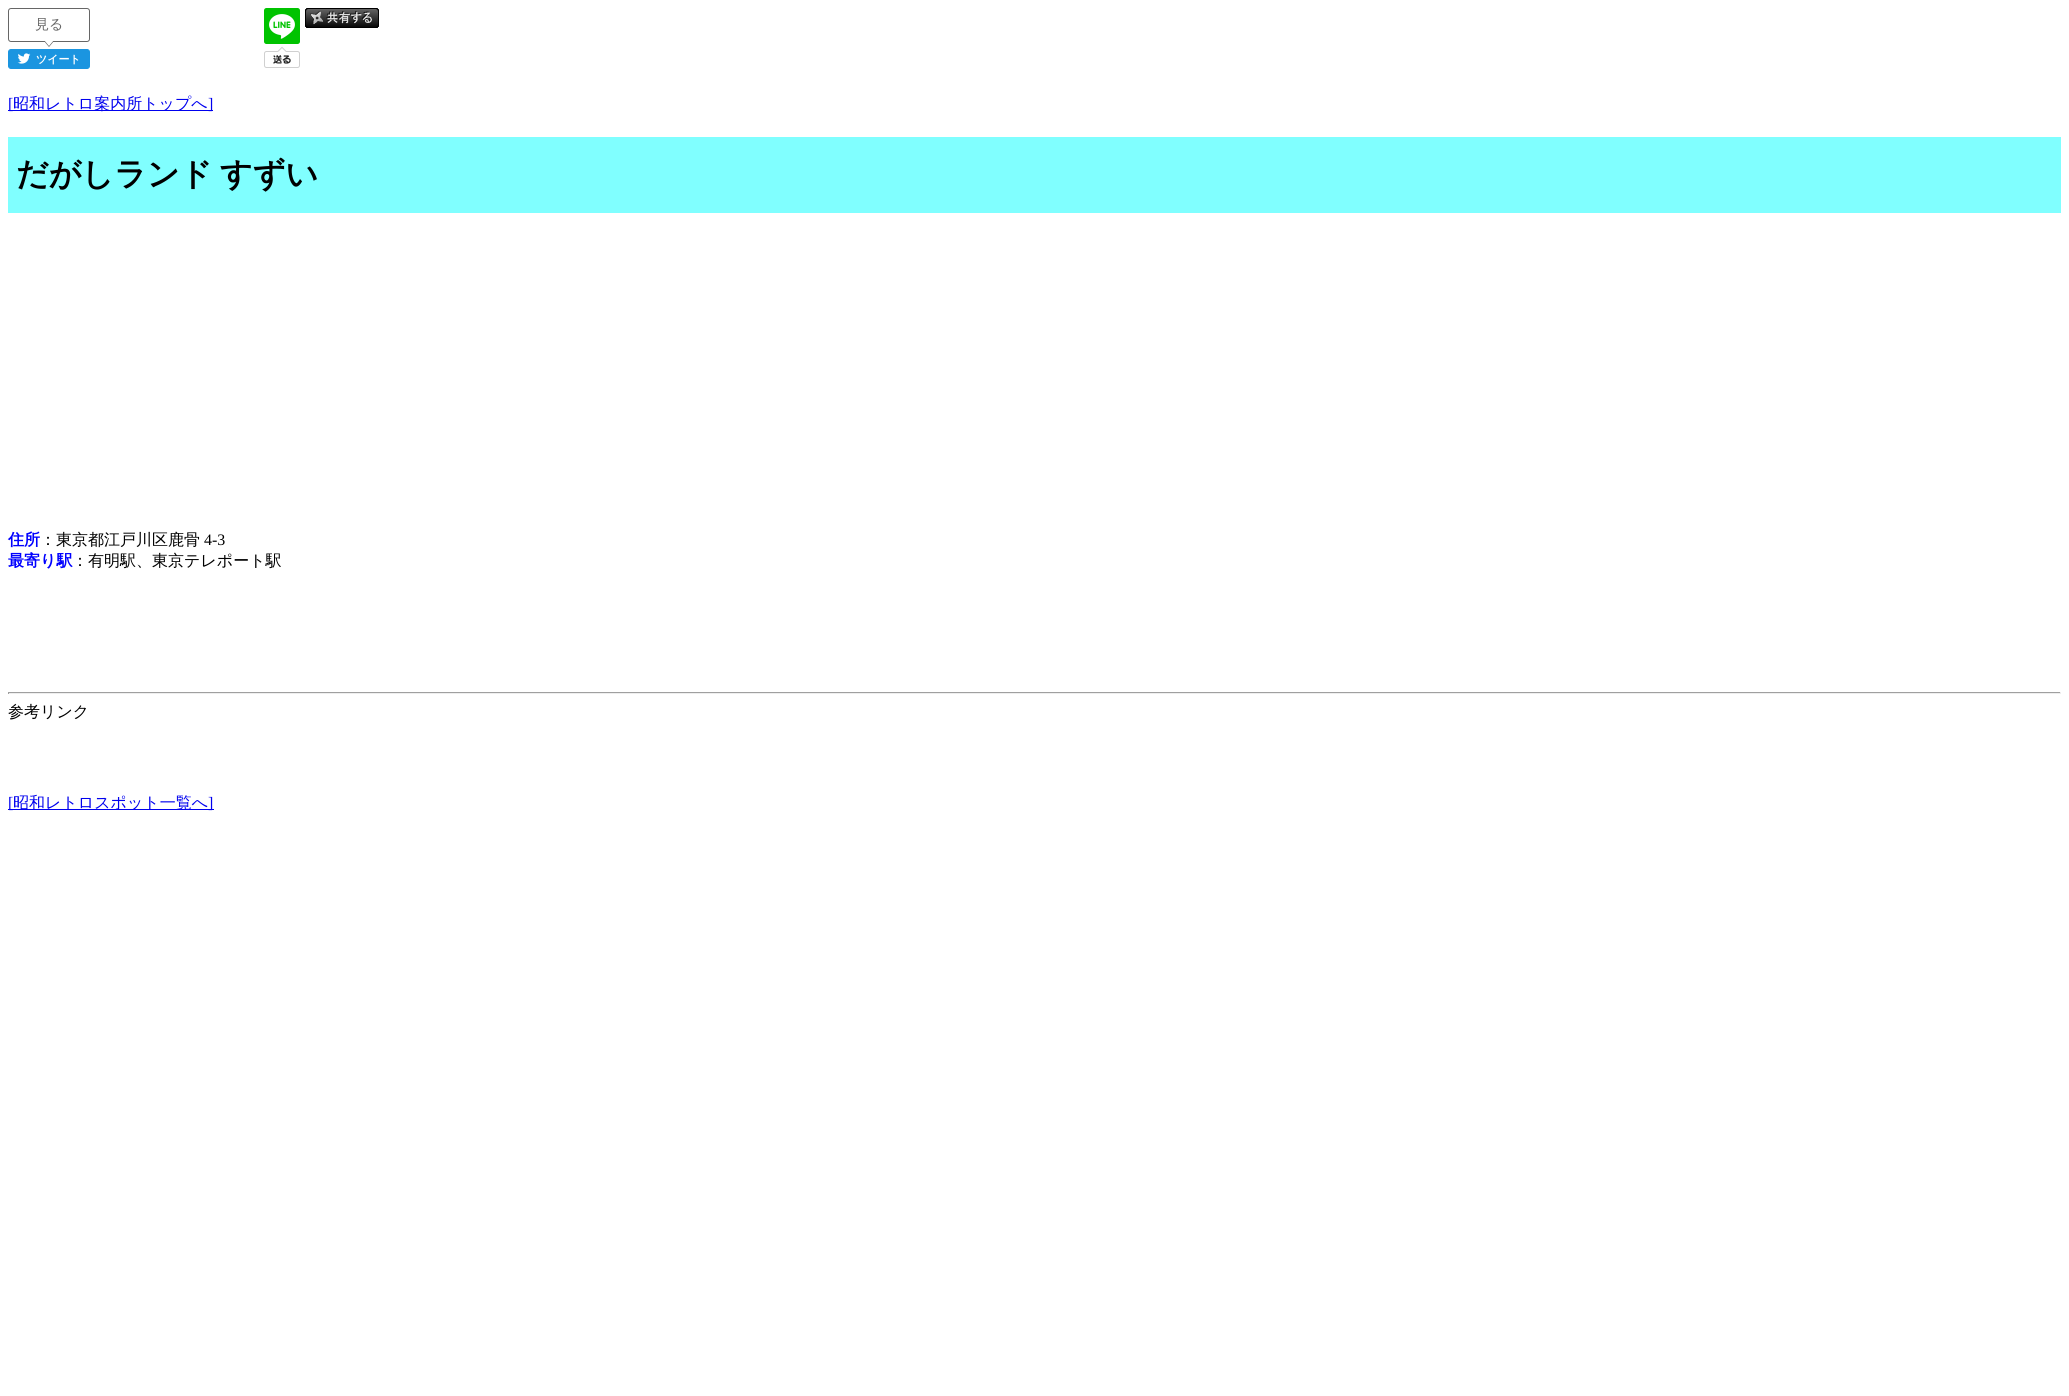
import math
import cairo

surface = cairo.ImageSurface(cairo.Format.RGB24, 2069, 1396)
ctx = cairo.Context(surface)
options = cairo.FontOptions()
options.set_hint_metrics(cairo.HintMetrics.OFF)
options.set_hint_style(cairo.HintStyle.NONE)
ctx.set_font_options(options)
ctx.set_miter_limit(4)


def ink(r, g, b):
    ctx.set_source_rgb(r / 255, g / 255, b / 255)


def write(x, y, s, family, size, color, bold=False, italic=False):
    ctx.select_font_face(family, cairo.FontSlant.ITALIC if italic else cairo.FontSlant.NORMAL, cairo.FontWeight.BOLD if bold else cairo.FontWeight.NORMAL)
    ctx.set_font_size(size)
    ink(*color)
    ctx.move_to(x, y)
    ctx.show_text(s)


def write_spaced(x, y, s, letter, word):
    ctx.move_to(x, y)
    for ch in s:
        ctx.show_text(ch)
        ctx.rel_move_to(letter + word * (ch == ' '), 0)


def block(x, y, w, h, *color):
    ink(*color)
    ctx.rectangle(x, y, w, h)
    ctx.fill()


def round_path(x, y, w, h, r):
    ctx.new_sub_path()
    for i, (u, v) in enumerate([(x + w - r, y + h - r), (x + r, y + h - r), (x + r, y + r), (x + w - r, y + r)]):
        ctx.arc(u, v, r, i * math.pi / 2, (i + 1) * math.pi / 2)
    ctx.close_path()


def paste(path, x, y, w, h):
    ctx.save()
    ctx.set_source_surface(cairo.ImageSurface.create_from_png(path), x, y)
    ctx.rectangle(x, y, w, h)
    ctx.fill()
    ctx.restore()


s1 = dict(family="WenQuanYi Zen Hei Medium", size=14, color=(102, 102, 102))
s2 = dict(family="WenQuanYi Zen Hei", size=11, color=(255, 255, 255), bold=True)
s3 = dict(family="Liberation Serif", size=16, color=(0, 0, 238))
s4 = dict(family="WenQuanYi Zen Hei Medium", size=16, color=(0, 0, 238))
s5 = dict(family="WenQuanYi Zen Hei", size=16, color=(0, 0, 255), bold=True)
s6 = dict(family="WenQuanYi Zen Hei Medium", size=16, color=(0, 0, 0))
s7 = dict(family="Liberation Serif", size=16, color=(0, 0, 0))

ink(255, 255, 255)
ctx.paint()
round_path(8.5, 8.5, 81, 33, 2.5)
ink(102, 102, 102)
ctx.set_line_width(1)
ctx.stroke()
write(35, 29, "見る", **s1)
ctx.new_path()
ctx.move_to(44, 41)
ctx.line_to(54, 41)
ctx.line_to(49, 47)
ctx.close_path()
ctx.fill()
ink(255, 255, 255)
ctx.new_path()
ctx.move_to(44, 40)
ctx.line_to(54, 40)
ctx.line_to(49, 46)
ctx.close_path()
ctx.fill()
ink(27, 149, 224)
round_path(8.5, 49.5, 81, 19, 2.5)
ctx.fill_preserve()
ctx.stroke()
paste("pic1.png", 17, 53, 14, 11)
write(36, 63, "ツイート", **s2)
paste("pic2.png", 264, 8, 36, 60)
paste("pic3.png", 305, 8, 74, 20)
block(8, 110, 205, 1, 0, 0, 238)
write(8, 109, "[", **s3)
write(13, 109, "昭和レトロ案内所トップへ", **s4)
write(208, 109, "]", **s3)
block(8, 137, 2053, 76, 128, 255, 255)
ctx.select_font_face("WenQuanYi Zen Hei", cairo.FontSlant.NORMAL, cairo.FontWeight.BOLD)
ctx.set_font_size(32)
ink(0, 0, 0)
write_spaced(16, 185, "だがしランド すずい", 0, -2)
write(8, 545, "住所", **s5)
write(40, 545, "：東京都江戸川区鹿骨", **s6)
write(204, 545, "4-3", **s7)
write(8, 566, "最寄り駅", **s5)
write(72, 566, "：有明駅、東京テレポート駅", **s6)
block(8, 692, 2053, 1, 159, 159, 159)
block(2060, 692, 1, 2, 238, 238, 238)
block(8, 693, 2053, 1, 238, 238, 238)
block(8, 692, 1, 2, 159, 159, 159)
write(8, 717, "参考リンク", **s6)
block(8, 809, 206, 1, 0, 0, 238)
write(8, 808, "[", **s3)
write(13, 808, "昭和レトロスポット一覧へ", **s4)
write(208, 808, "]", **s3)
surface.write_to_png("screenshot.png")
